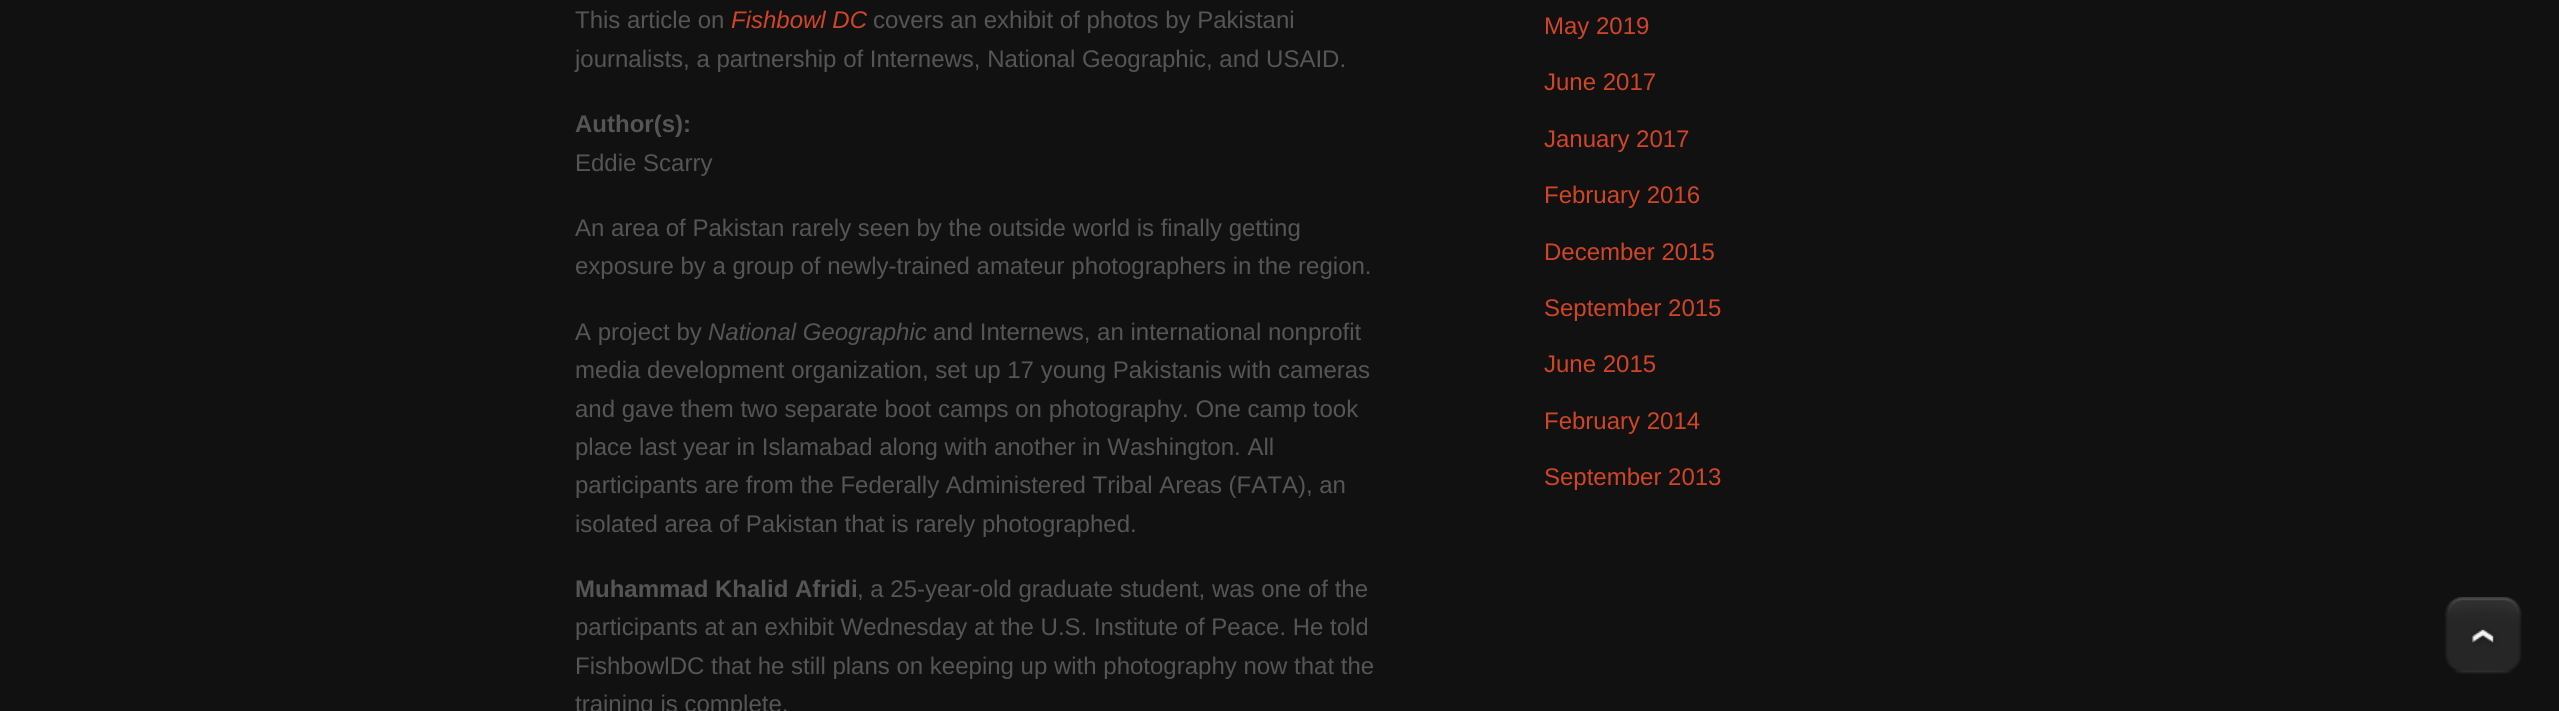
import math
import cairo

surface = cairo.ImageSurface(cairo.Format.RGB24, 2559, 711)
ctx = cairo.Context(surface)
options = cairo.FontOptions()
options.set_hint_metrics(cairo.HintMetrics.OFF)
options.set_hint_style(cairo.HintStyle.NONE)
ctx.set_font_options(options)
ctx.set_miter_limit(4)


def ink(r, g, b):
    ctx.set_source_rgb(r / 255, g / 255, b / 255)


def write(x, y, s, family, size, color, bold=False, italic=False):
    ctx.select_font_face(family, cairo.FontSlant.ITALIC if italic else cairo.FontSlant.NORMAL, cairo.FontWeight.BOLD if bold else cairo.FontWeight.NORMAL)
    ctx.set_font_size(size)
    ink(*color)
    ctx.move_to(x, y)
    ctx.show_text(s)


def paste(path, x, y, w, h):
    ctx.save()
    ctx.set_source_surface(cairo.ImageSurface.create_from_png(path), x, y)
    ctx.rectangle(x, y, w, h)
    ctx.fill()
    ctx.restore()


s1 = dict(family="Liberation Sans", size=24, color=(85, 85, 85))
s2 = dict(family="Liberation Sans", size=24, color=(208, 69, 38), italic=True)
s3 = dict(family="Liberation Sans", size=24, color=(85, 85, 85), bold=True)
s4 = dict(family="Liberation Sans", size=24, color=(85, 85, 85), italic=True)
s5 = dict(family="Liberation Sans", size=24, color=(208, 69, 38))

ink(17, 17, 17)
ctx.paint()
write(575, 28, "This article on", **s1)
write(731, 28, "Fishbowl DC", **s2)
write(873, 28, "covers an exhibit of photos by Pakistani", **s1)
write(575, 67, "journalists, a partnership of Internews, National Geographic, and USAID.", **s1)
write(575, 132, "Author(s):", **s3)
write(575, 171, "Eddie Scarry", **s1)
write(575, 236, "An area of Pakistan rarely seen by the outside world is finally getting", **s1)
write(575, 274, "exposure by a group of newly-trained amateur photographers in the region.", **s1)
write(575, 340, "A project by", **s1)
write(708, 340, "National Geographic", **s4)
write(933, 340, "and Internews, an international nonprofit", **s1)
write(575, 378, "media development organization, set up 17 young Pakistanis with cameras", **s1)
write(575, 417, "and gave them two separate boot camps on photography. One camp took", **s1)
write(575, 455, "place last year in Islamabad along with another in Washington. All", **s1)
write(575, 493, "participants are from the Federally Administered Tribal Areas (FATA), an", **s1)
write(575, 532, "isolated area of Pakistan that is rarely photographed.", **s1)
write(575, 597, "Muhammad Khalid Afridi", **s3)
write(857, 597, ", a 25-year-old graduate student, was one of the", **s1)
write(575, 635, "participants at an exhibit Wednesday at the U.S. Institute of Peace. He told", **s1)
write(575, 674, "FishbowlDC that he still plans on keeping up with photography now that the", **s1)
write(575, 712, "training is complete.", **s1)
write(1544, 34, "May 2019", **s5)
write(1544, 90, "June 2017", **s5)
write(1544, 147, "January 2017", **s5)
write(1544, 203, "February 2016", **s5)
write(1544, 260, "December 2015", **s5)
write(1544, 316, "September 2015", **s5)
write(1544, 372, "June 2015", **s5)
write(1544, 429, "February 2014", **s5)
write(1544, 485, "September 2013", **s5)
paste("pic1.png", 2445, 597, 77, 77)
surface.write_to_png("screenshot.png")
